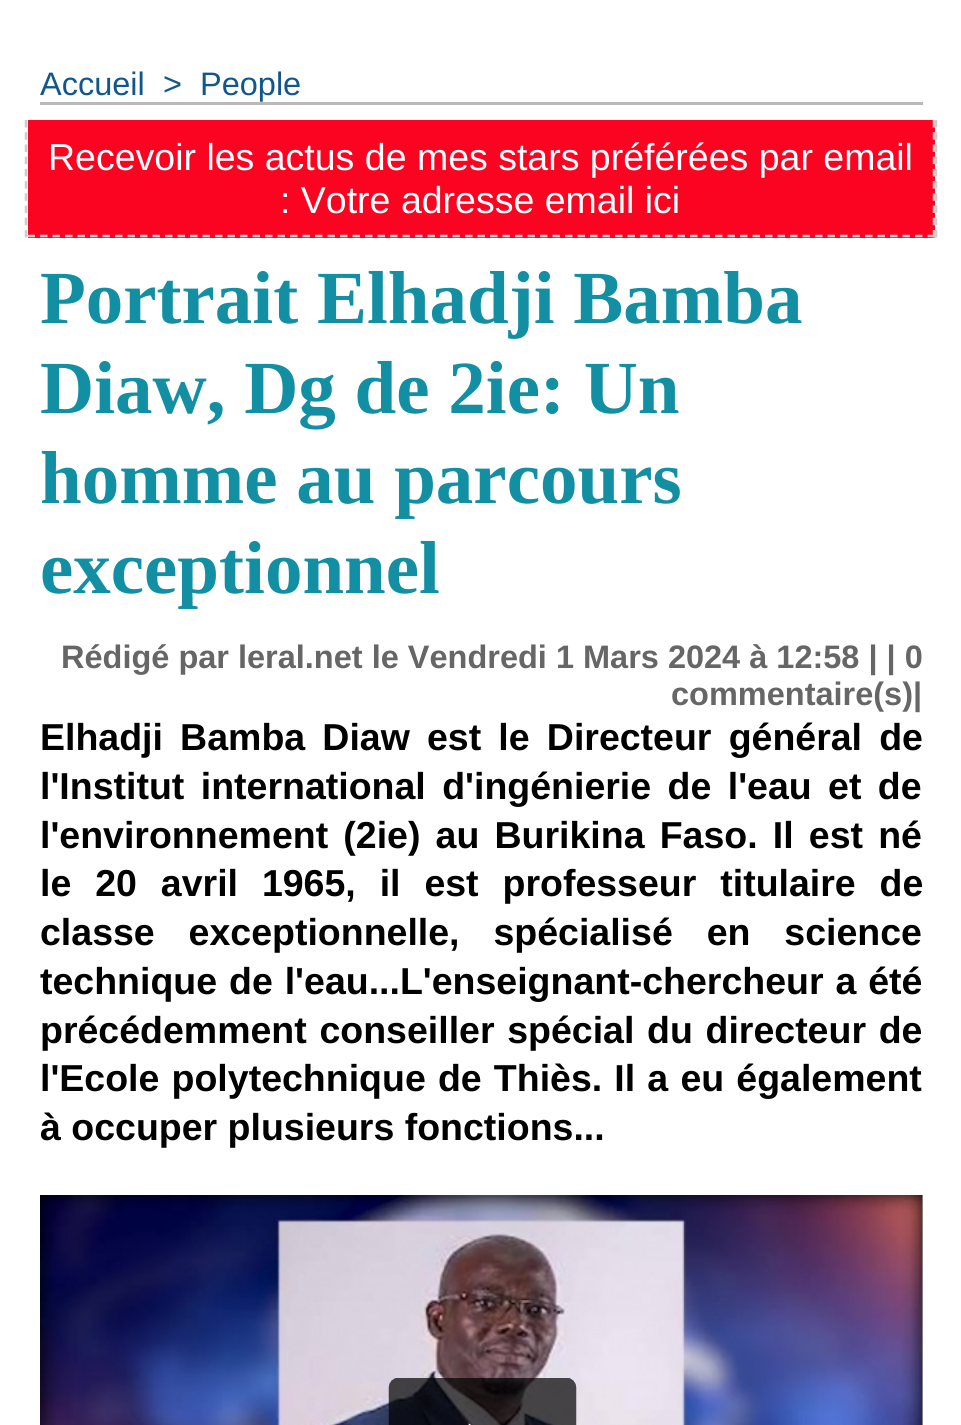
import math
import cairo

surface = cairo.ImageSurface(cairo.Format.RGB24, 961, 1425)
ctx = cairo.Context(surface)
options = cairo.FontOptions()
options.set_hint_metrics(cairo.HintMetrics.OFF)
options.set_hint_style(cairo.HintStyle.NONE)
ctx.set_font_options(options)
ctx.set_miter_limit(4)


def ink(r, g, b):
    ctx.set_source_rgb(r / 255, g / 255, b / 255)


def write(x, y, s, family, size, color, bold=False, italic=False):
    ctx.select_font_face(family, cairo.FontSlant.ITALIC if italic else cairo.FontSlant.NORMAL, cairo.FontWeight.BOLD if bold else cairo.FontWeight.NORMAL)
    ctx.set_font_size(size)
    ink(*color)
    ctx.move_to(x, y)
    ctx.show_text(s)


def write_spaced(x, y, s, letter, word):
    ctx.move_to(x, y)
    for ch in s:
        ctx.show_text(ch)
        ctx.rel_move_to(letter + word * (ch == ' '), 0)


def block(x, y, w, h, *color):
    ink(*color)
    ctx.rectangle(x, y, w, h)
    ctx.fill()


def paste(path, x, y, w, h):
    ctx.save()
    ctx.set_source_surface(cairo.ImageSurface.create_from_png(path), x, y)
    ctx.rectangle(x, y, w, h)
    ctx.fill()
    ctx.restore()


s1 = dict(family="Liberation Sans", size=32.5, color=(18, 87, 140))
s2 = dict(family="Liberation Sans", size=37.5, color=(255, 255, 255))
s3 = dict(family="Liberation Serif", size=75, color=(18, 143, 162), bold=True)
s4 = dict(family="Liberation Sans", size=32.5, color=(102, 102, 102), bold=True)
s5 = dict(family="Liberation Sans", size=37.5, color=(0, 0, 0), bold=True)

ink(255, 255, 255)
ctx.paint()
write(40, 95, "Accueil", **s1)
write(163, 95, ">", **s1)
write(200, 95, "People", **s1)
block(40, 102, 883, 3, 185, 185, 185)
ctx.new_path()
ctx.move_to(936, 120)
ctx.line_to(936, 237.5)
ink(204, 204, 204)
ctx.set_line_width(2.5)
ctx.set_dash([7.5, 4.72])
ctx.stroke()
ctx.new_path()
ctx.move_to(26, 120)
ctx.line_to(26, 237.5)
ctx.stroke()
block(28, 120, 907, 118, 251, 4, 33)
ctx.new_path()
ctx.move_to(934, 120)
ctx.line_to(934, 237.5)
ink(204, 204, 204)
ctx.stroke()
ctx.new_path()
ctx.move_to(27.5, 236)
ctx.line_to(935, 236)
ctx.set_dash([7.5, 5])
ctx.stroke()
write(48, 170, "Recevoir les actus de mes stars préférées par email", **s2)
write(280, 213, ": Votre adresse email ici", **s2)
write(40, 323, "Portrait Elhadji Bamba", **s3)
write(40, 413, "Diaw, Dg de 2ie: Un", **s3)
write(40, 503, "homme au parcours", **s3)
write(40, 593, "exceptionnel", **s3)
write(61, 668, "Rédigé par leral.net le Vendredi 1 Mars 2024 à 12:58 | | 0", **s4)
write(671, 705, "commentaire(s)|", **s4)
ctx.set_font_size(37.5)
ink(0, 0, 0)
write_spaced(40, 750, "Elhadji Bamba Diaw est le Directeur général de", 0, 6.75)
write_spaced(40, 799, "l'Institut international d'ingénierie de l'eau et de", 0, 6)
write_spaced(40, 848, "l'environnement (2ie) au Burikina Faso. Il est né", 0, 4.75)
write_spaced(40, 896, "le 20 avril 1965, il est professeur titulaire de", 0, 13.5)
write_spaced(40, 945, "classe exceptionnelle, spécialisé en science", 0, 23.5)
write_spaced(40, 994, "technique de l'eau...L'enseignant-chercheur a été", 0, 1.5)
write_spaced(40, 1043, "précédemment conseiller spécial du directeur de", 0, 2.25)
write_spaced(40, 1091, "l'Ecole polytechnique de Thiès. Il a eu également", 0, 1.75)
write(40, 1140, "à occuper plusieurs fonctions...", **s5)
paste("pic1.png", 40, 1195, 883, 230)
surface.write_to_png("screenshot.png")
